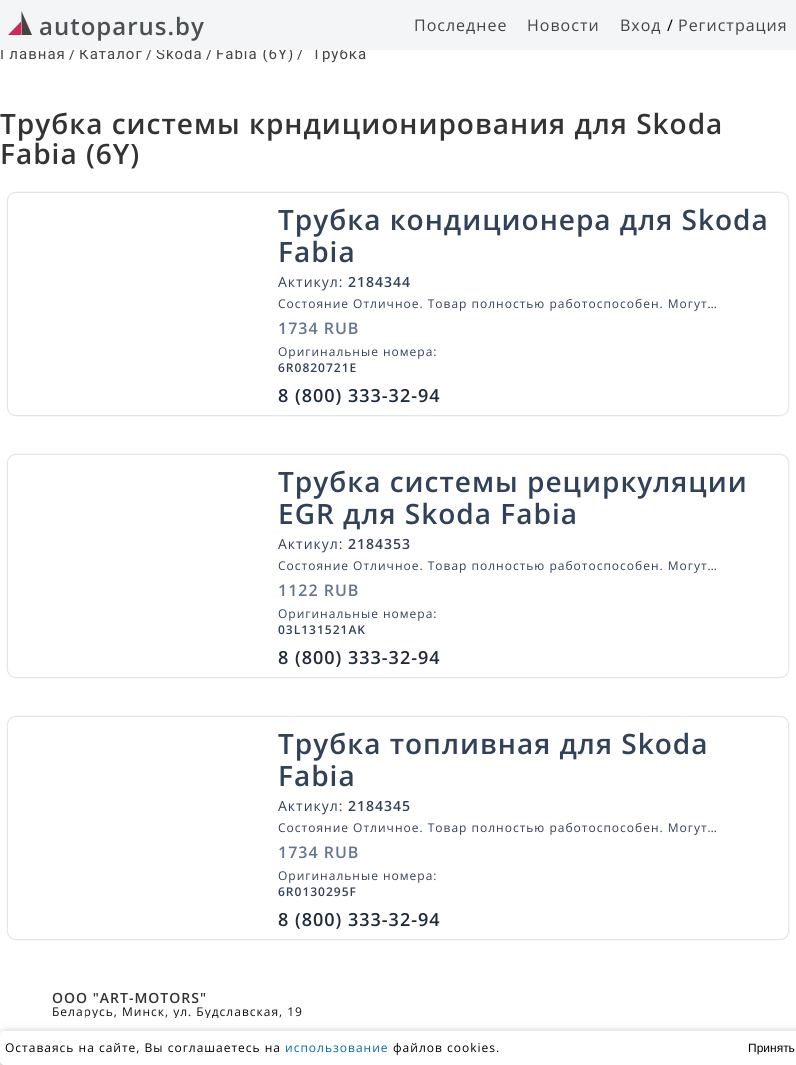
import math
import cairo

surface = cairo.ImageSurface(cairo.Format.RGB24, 796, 1065)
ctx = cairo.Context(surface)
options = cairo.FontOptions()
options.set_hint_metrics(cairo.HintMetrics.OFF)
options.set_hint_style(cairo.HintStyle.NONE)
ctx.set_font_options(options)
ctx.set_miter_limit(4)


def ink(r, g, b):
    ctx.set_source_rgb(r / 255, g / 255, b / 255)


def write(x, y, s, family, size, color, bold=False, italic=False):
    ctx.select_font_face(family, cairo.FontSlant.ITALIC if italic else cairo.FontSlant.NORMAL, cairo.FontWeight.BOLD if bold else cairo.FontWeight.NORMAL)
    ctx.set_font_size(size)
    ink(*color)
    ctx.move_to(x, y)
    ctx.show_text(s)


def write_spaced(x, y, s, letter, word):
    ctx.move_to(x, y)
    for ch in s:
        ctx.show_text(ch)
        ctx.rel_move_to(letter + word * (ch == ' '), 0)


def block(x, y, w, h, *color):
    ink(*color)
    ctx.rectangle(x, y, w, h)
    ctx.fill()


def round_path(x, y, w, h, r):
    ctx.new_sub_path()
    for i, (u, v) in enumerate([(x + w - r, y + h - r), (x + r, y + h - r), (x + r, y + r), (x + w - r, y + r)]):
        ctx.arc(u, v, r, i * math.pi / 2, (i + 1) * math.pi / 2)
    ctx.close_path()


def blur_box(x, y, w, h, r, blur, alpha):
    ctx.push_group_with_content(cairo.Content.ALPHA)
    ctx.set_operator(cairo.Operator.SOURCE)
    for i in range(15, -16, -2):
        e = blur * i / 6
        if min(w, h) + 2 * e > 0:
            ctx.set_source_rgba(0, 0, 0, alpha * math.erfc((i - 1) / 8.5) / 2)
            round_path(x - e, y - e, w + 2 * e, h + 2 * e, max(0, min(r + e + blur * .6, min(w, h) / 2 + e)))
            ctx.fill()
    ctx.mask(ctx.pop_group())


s1 = dict(family="Liberation Sans", size=12, color=(0, 0, 0))

ink(255, 255, 255)
ctx.paint()
ctx.select_font_face("Roboto")
ctx.set_font_size(15)
ink(68, 68, 68)
write_spaced(0, 59, "Главная", 1, 0)
write_spaced(69, 59, "/", 1, 0)
write_spaced(79, 59, "Каталог", 1, 0)
write_spaced(146, 59, "/", 1, 0)
write_spaced(156, 59, "Skoda", 1, 0)
write_spaced(206, 59, "/", 1, 0)
write_spaced(216, 59, "Fabia (6Y)", 1, 0)
write_spaced(297, 59, "/", 1, 0)
write_spaced(312, 59, "Трубка", 1, 0)
block(0, 0, 796, 50, 244, 245, 247)
ink(210, 40, 86)
ctx.new_path()
ctx.move_to(21, 21.5)
ctx.line_to(21, 35)
ctx.line_to(8, 35)
ctx.close_path()
ctx.fill()
ink(73, 66, 66)
ctx.new_path()
ctx.move_to(21.5, 11)
ctx.line_to(32, 35)
ctx.line_to(21.5, 35)
ctx.close_path()
ctx.fill()
ctx.select_font_face("Open Sans SemiBold")
ctx.set_font_size(24)
ink(76, 80, 83)
write_spaced(39, 35, "autoparus.by", 1, 0)
ctx.select_font_face("Open Sans")
ctx.set_font_size(16)
ink(68, 68, 68)
write_spaced(414, 31, "Последнее", 1, 0)
write_spaced(527, 31, "Новости", 1, 0)
write_spaced(620, 31, "Вход", 1, 0)
ink(0, 0, 0)
write_spaced(667, 31, "/", 1, 0)
ink(68, 68, 68)
write_spaced(678, 31, "Регистрация", 1, 0)
ctx.select_font_face("Open Sans SemiBold")
ctx.set_font_size(28)
ink(51, 51, 51)
write_spaced(0, 134, "Трубка системы крндиционирования для Skoda", 1, 0)
write_spaced(0, 164, "Fabia (6Y)", 1, 0)
ink(34, 60, 80)
blur_box(7, 192, 782, 224, 9, 0.5, 0.15)
ink(255, 255, 255)
round_path(8, 193, 780, 222, 8)
ctx.fill()
ink(49, 65, 88)
write_spaced(278, 230, "Трубка кондиционера для Skoda", 1, 0)
write_spaced(278, 262, "Fabia", 1, 0)
ctx.select_font_face("Open Sans")
ctx.set_font_size(14)
write_spaced(278, 287, "Актикул:", 1, 0)
ctx.select_font_face("Open Sans SemiBold")
write_spaced(348, 287, "2184344", 1, 0)
ctx.select_font_face("Open Sans")
ctx.set_font_size(12)
write_spaced(278, 308, "Состояние Отличное. Товар полностью работоспособен. Могут…", 1, 0)
ctx.select_font_face("Open Sans SemiBold")
ctx.set_font_size(16)
ink(98, 116, 142)
write_spaced(278, 334, "1734 RUB", 1, 0)
ctx.select_font_face("Open Sans")
ctx.set_font_size(12)
ink(49, 65, 88)
write_spaced(278, 356, "Оригинальные номера:", 1, 0)
ctx.select_font_face("Open Sans SemiBold")
write_spaced(278, 372, "6R0820721E", 1, 0)
ctx.set_font_size(18)
ink(29, 41, 61)
write_spaced(278, 402, "8 (800) 333-32-94", 1, 0)
ink(34, 60, 80)
blur_box(7, 454, 782, 224, 9, 0.5, 0.15)
ink(255, 255, 255)
round_path(8, 455, 780, 222, 8)
ctx.fill()
ctx.set_font_size(28)
ink(49, 65, 88)
write_spaced(278, 492, "Трубка системы рециркуляции", 1, 0)
write_spaced(278, 524, "EGR для Skoda Fabia", 1, 0)
ctx.select_font_face("Open Sans")
ctx.set_font_size(14)
write_spaced(278, 549, "Актикул:", 1, 0)
ctx.select_font_face("Open Sans SemiBold")
write_spaced(348, 549, "2184353", 1, 0)
ctx.select_font_face("Open Sans")
ctx.set_font_size(12)
write_spaced(278, 570, "Состояние Отличное. Товар полностью работоспособен. Могут…", 1, 0)
ctx.select_font_face("Open Sans SemiBold")
ctx.set_font_size(16)
ink(98, 116, 142)
write_spaced(278, 596, "1122 RUB", 1, 0)
ctx.select_font_face("Open Sans")
ctx.set_font_size(12)
ink(49, 65, 88)
write_spaced(278, 618, "Оригинальные номера:", 1, 0)
ctx.select_font_face("Open Sans SemiBold")
write_spaced(278, 634, "03L131521AK", 1, 0)
ctx.set_font_size(18)
ink(29, 41, 61)
write_spaced(278, 664, "8 (800) 333-32-94", 1, 0)
ink(34, 60, 80)
blur_box(7, 716, 782, 224, 9, 0.5, 0.15)
ink(255, 255, 255)
round_path(8, 717, 780, 222, 8)
ctx.fill()
ctx.set_font_size(28)
ink(49, 65, 88)
write_spaced(278, 754, "Трубка топливная для Skoda", 1, 0)
write_spaced(278, 786, "Fabia", 1, 0)
ctx.select_font_face("Open Sans")
ctx.set_font_size(14)
write_spaced(278, 811, "Актикул:", 1, 0)
ctx.select_font_face("Open Sans SemiBold")
write_spaced(348, 811, "2184345", 1, 0)
ctx.select_font_face("Open Sans")
ctx.set_font_size(12)
write_spaced(278, 832, "Состояние Отличное. Товар полностью работоспособен. Могут…", 1, 0)
ctx.select_font_face("Open Sans SemiBold")
ctx.set_font_size(16)
ink(98, 116, 142)
write_spaced(278, 858, "1734 RUB", 1, 0)
ctx.select_font_face("Open Sans")
ctx.set_font_size(12)
ink(49, 65, 88)
write_spaced(278, 880, "Оригинальные номера:", 1, 0)
ctx.select_font_face("Open Sans SemiBold")
write_spaced(278, 896, "6R0130295F", 1, 0)
ctx.set_font_size(18)
ink(29, 41, 61)
write_spaced(278, 926, "8 (800) 333-32-94", 1, 0)
ctx.set_font_size(14)
ink(51, 51, 51)
write_spaced(52, 1003, "ООО \"ART-MOTORS\"", 1, 0)
ctx.save()
ctx.rectangle(52, 1005, 251, 13)
ctx.clip()
ctx.select_font_face("Open Sans")
ctx.set_font_size(12)
ink(17, 17, 17)
write_spaced(52, 1016, "Беларусь, Минск, ул. Будславская, 19", 1, 0)
ctx.restore()
ink(0, 0, 0)
blur_box(2, 1034, 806, 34, 4, 5, 0.4)
ink(255, 255, 255)
round_path(0, 1031, 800, 34, 4)
ctx.fill()
ctx.select_font_face("Open Sans")
ctx.set_font_size(12)
ink(0, 0, 0)
write_spaced(5, 1052, "Оставаясь на сайте, Вы соглашаетесь на", 1, 0)
ink(3, 105, 161)
write_spaced(285, 1052, "использование", 1, 0)
ink(0, 0, 0)
write_spaced(393, 1052, "файлов cookies.", 1, 0)
write(748, 1052, "Принять", **s1)
surface.write_to_png("screenshot.png")
